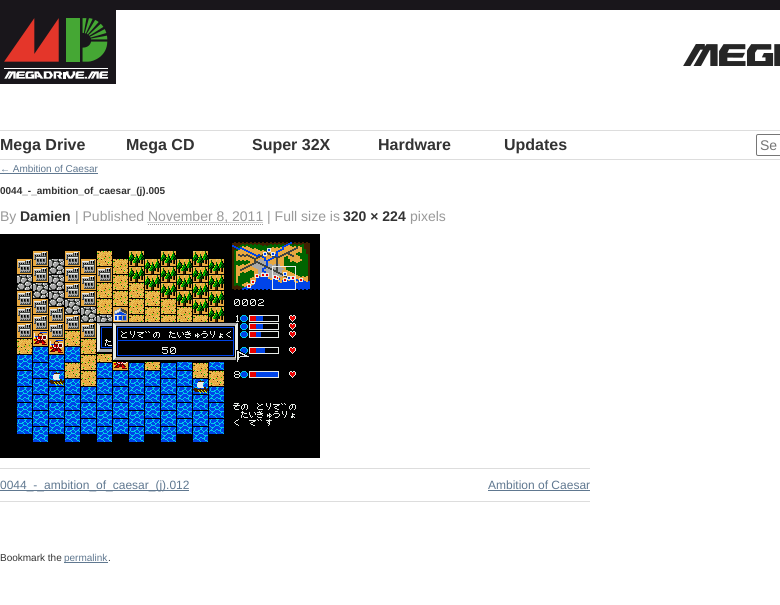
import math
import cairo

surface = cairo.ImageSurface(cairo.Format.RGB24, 780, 605)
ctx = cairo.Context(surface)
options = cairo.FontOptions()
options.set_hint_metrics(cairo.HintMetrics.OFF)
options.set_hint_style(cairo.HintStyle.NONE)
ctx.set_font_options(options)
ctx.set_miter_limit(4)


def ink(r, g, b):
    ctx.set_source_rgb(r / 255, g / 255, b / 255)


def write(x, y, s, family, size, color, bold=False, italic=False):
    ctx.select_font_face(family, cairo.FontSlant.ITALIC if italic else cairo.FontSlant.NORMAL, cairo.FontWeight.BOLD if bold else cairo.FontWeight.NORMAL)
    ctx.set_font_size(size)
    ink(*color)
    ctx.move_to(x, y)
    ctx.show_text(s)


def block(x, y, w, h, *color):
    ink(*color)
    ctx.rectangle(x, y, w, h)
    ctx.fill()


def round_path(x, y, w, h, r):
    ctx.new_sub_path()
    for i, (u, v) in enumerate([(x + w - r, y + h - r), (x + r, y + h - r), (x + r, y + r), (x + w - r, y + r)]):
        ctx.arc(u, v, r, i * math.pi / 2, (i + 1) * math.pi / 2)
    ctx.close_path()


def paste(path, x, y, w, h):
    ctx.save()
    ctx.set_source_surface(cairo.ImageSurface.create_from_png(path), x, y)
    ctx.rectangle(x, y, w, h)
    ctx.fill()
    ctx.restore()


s1 = dict(family="Liberation Sans", size=16, color=(51, 51, 51), bold=True)
s2 = dict(family="Liberation Sans", size=14, color=(117, 117, 117))
s3 = dict(family="Liberation Sans", size=10, color=(96, 120, 144))
s4 = dict(family="Liberation Sans", size=10, color=(51, 51, 51), bold=True)
s5 = dict(family="Liberation Sans", size=14, color=(153, 153, 153))
s6 = dict(family="Liberation Sans", size=14, color=(51, 51, 51), bold=True)
s7 = dict(family="Liberation Sans", size=12, color=(96, 120, 144))
s8 = dict(family="Liberation Sans", size=10, color=(51, 51, 51))

ink(255, 255, 255)
ctx.paint()
block(0, 0, 780, 10, 25, 22, 27)
paste("pic1.png", 0, 10, 116, 74)
paste("pic2.png", 683, 44, 97, 22)
block(0, 130, 780, 1, 221, 221, 221)
block(0, 159, 780, 1, 221, 221, 221)
write(0, 150, "Mega Drive", **s1)
write(126, 150, "Mega CD", **s1)
write(252, 150, "Super 32X", **s1)
write(378, 150, "Hardware", **s1)
write(504, 150, "Updates", **s1)
round_path(756.5, 134.5, 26, 21, 1.5)
ink(118, 118, 118)
ctx.set_line_width(1)
ctx.stroke()
write(760, 150, "Se", **s2)
write(0, 172, "← Ambition of Caesar", **s3)
block(0, 173, 98, 1, 96, 120, 144)
write(0, 194, "0044_-_ambition_of_caesar_(j).005", **s4)
write(0, 221, "By", **s5)
write(20, 221, "Damien", **s6)
write(75, 221, "| Published", **s5)
ctx.new_path()
ctx.move_to(147.5, 222.5)
ctx.line_to(263, 222.5)
ctx.set_dash([1, 1])
ctx.stroke()
write(148, 221, "November 8, 2011 | Full size is", **s5)
ctx.new_path()
ctx.move_to(148, 224.5)
ctx.line_to(263, 224.5)
ctx.stroke()
write(343, 221, "320 × 224", **s6)
write(410, 221, "pixels", **s5)
paste("pic3.png", 0, 234, 320, 224)
block(0, 468, 590, 1, 221, 221, 221)
block(0, 501, 590, 1, 221, 221, 221)
block(0, 490, 189, 1, 96, 120, 144)
write(0, 489, "0044_-_ambition_of_caesar_(j).012", **s7)
write(488, 489, "Ambition of Caesar", **s7)
block(488, 490, 102, 1, 96, 120, 144)
write(0, 561, "Bookmark the", **s8)
block(64, 562, 44, 1, 96, 120, 144)
write(64, 561, "permalink", **s3)
write(108, 561, ".", **s8)
surface.write_to_png("screenshot.png")
